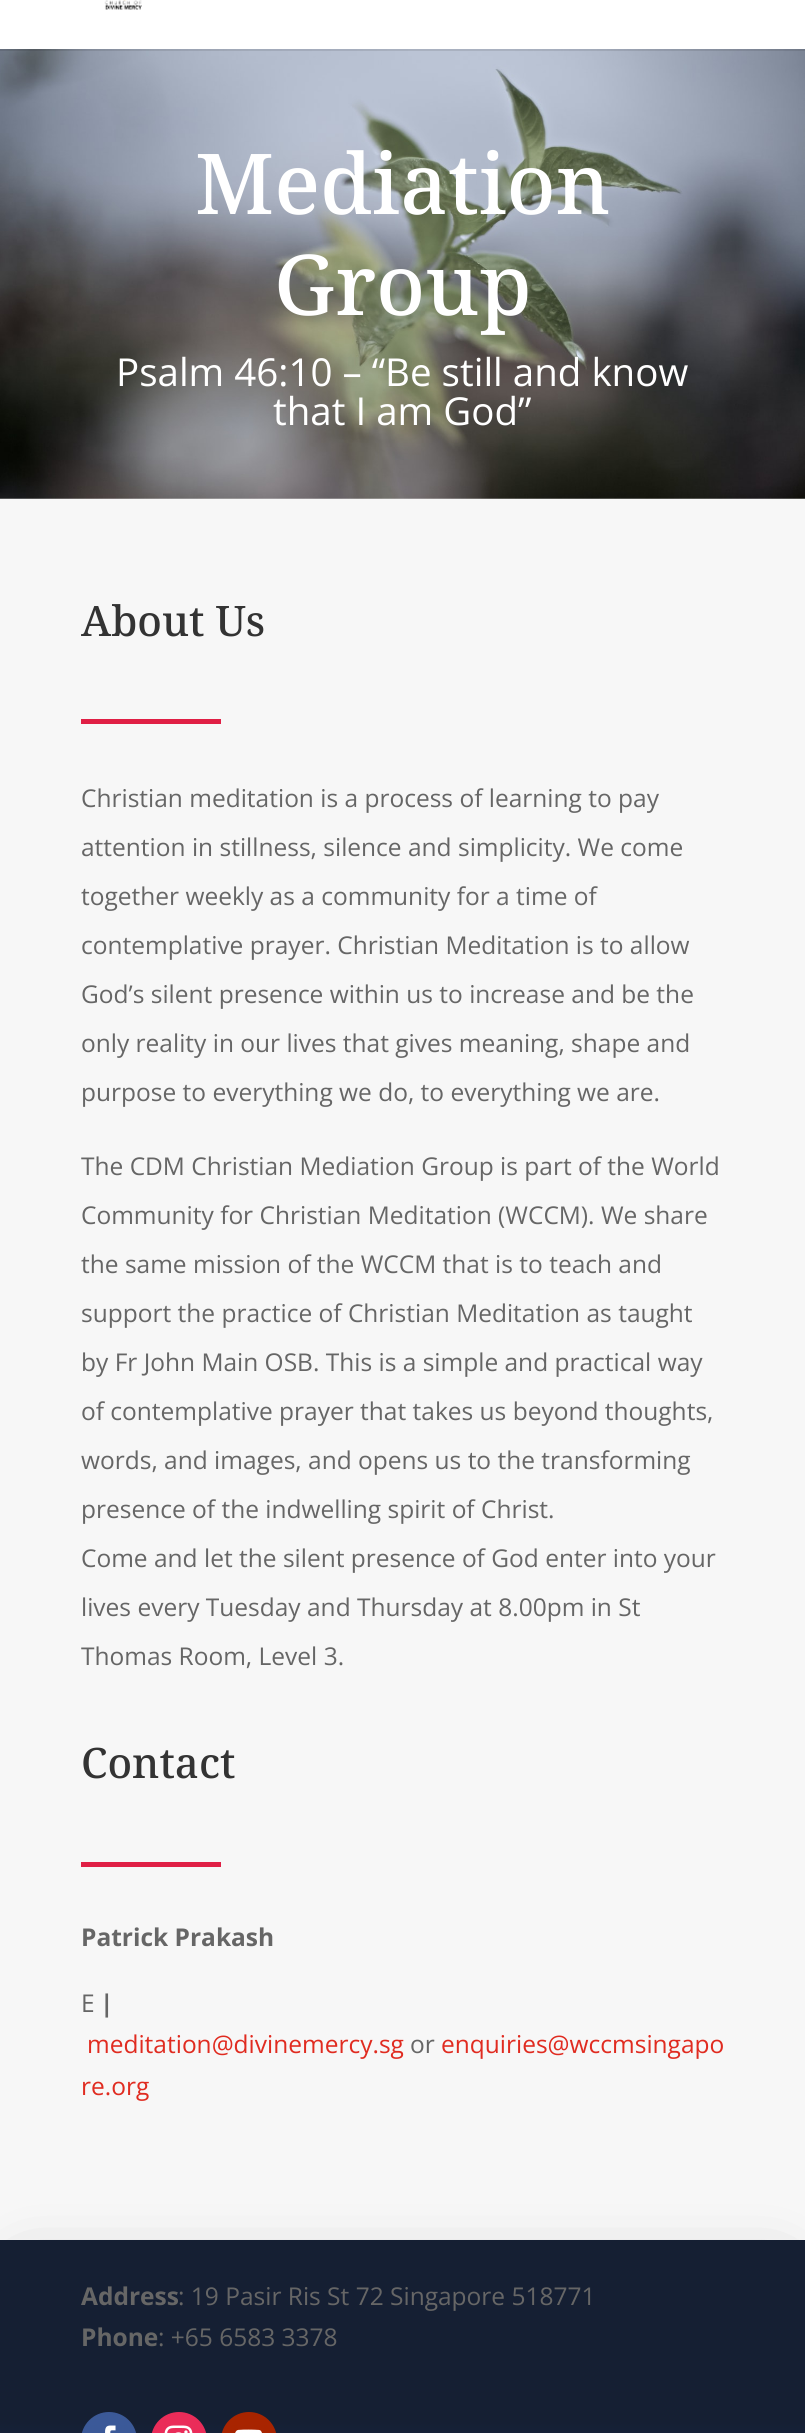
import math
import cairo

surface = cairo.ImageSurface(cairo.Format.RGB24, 805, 2433)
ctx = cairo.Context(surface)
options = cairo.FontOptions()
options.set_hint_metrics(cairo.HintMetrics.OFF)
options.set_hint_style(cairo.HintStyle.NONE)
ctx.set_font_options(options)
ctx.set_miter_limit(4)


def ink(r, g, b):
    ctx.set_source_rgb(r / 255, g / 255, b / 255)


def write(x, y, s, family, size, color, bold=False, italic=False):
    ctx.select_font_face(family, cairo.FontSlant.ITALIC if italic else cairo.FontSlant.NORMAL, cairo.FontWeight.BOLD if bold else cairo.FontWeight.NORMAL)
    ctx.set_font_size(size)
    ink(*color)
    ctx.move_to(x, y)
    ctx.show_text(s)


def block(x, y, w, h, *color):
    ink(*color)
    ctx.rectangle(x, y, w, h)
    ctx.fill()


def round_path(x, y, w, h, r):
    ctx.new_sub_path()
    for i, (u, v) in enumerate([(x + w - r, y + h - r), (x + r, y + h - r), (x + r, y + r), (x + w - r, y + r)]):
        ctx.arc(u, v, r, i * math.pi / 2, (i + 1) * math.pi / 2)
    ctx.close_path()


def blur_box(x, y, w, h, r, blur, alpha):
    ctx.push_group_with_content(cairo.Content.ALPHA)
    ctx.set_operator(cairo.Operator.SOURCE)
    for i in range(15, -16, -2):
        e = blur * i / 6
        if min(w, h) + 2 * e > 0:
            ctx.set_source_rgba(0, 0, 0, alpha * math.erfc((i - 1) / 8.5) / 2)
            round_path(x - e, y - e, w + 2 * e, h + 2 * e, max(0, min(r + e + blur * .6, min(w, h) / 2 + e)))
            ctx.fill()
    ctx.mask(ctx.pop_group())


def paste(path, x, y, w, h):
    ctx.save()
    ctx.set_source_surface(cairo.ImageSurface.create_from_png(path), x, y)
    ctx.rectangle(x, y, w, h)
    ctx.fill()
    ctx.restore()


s1 = dict(family="Noto Serif Medium", size=84, color=(255, 255, 255))
s2 = dict(family="Open Sans", size=38.5, color=(255, 255, 255))
s3 = dict(family="Noto Serif Medium", size=42, color=(51, 51, 51))
s4 = dict(family="Open Sans", size=24.5, color=(102, 102, 102))
s5 = dict(family="Open Sans", size=24.5, color=(102, 102, 102), bold=True)
s6 = dict(family="Open Sans", size=24.5, color=(224, 43, 32))

ink(255, 255, 255)
ctx.paint()
paste("pic2.png", 0, 49, 805, 450)
ctx.set_source_rgba(0, 0, 0, 0.1)
ctx.rectangle(0, 49, 805, 2)
ctx.fill()
paste("pic1.png", 104, 0, 38, 10)
write(195, 214, "Mediation", **s1)
write(274, 315, "Group", **s1)
write(116, 386, "Psalm 46:10 – “Be still and know", **s2)
write(273, 425, "that I am God”", **s2)
block(0, 499, 805, 1741, 247, 247, 247)
write(81, 636, "About Us", **s3)
block(81, 719, 140, 5, 224, 31, 69)
write(81, 807, "Christian meditation is a process of learning to pay", **s4)
write(81, 856, "attention in stillness, silence and simplicity. We come", **s4)
write(81, 905, "together weekly as a community for a time of", **s4)
write(81, 954, "contemplative prayer. Christian Meditation is to allow", **s4)
write(81, 1003, "God’s silent presence within us to increase and be the", **s4)
write(81, 1052, "only reality in our lives that gives meaning, shape and", **s4)
write(81, 1101, "purpose to everything we do, to everything we are.", **s4)
write(81, 1175, "The CDM Christian Mediation Group is part of the World", **s4)
write(81, 1224, "Community for Christian Meditation (WCCM). We share", **s4)
write(81, 1273, "the same mission of the WCCM that is to teach and", **s4)
write(81, 1322, "support the practice of Christian Meditation as taught", **s4)
write(81, 1371, "by Fr John Main OSB. This is a simple and practical way", **s4)
write(81, 1420, "of contemplative prayer that takes us beyond thoughts,", **s4)
write(81, 1469, "words, and images, and opens us to the transforming", **s4)
write(81, 1518, "presence of the indwelling spirit of Christ.", **s4)
write(81, 1567, "Come and let the silent presence of God enter into your", **s4)
write(81, 1616, "lives every Tuesday and Thursday at 8.00pm in St", **s4)
write(81, 1665, "Thomas Room, Level 3.", **s4)
write(81, 1778, "Contact", **s3)
block(81, 1862, 140, 5, 224, 31, 69)
write(81, 1946, "Patrick Prakash", **s5)
write(81, 2012, "E", **s4)
write(100, 2012, "|", **s5)
write(87, 2053, "meditation@divinemercy.sg", **s6)
write(410, 2053, "or", **s4)
write(441, 2053, "enquiries@wccmsingapo", **s6)
write(81, 2095, "re.org", **s6)
ink(0, 0, 0)
blur_box(26, 2280, 753, 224, 0, 35, 0.3)
gradient = cairo.LinearGradient(403, 2240, 403, 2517)
gradient.add_color_stop_rgba(0.66, 0.082, 0.122, 0.2, 1)
gradient.add_color_stop_rgba(0.92, 0.102, 0.18, 0.337, 1)
ctx.set_source(gradient)
ctx.rectangle(0, 2240, 805, 193)
ctx.fill()
write(81, 2305, "Address", **s5)
write(178, 2305, ": 19 Pasir Ris St 72 Singapore 518771", **s4)
write(81, 2346, "Phone", **s5)
write(158, 2346, ": +65 6583 3378", **s4)
ink(59, 89, 152)
round_path(81, 2412, 56, 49, 28)
ctx.fill()
paste("pic3.png", 105, 2425, 11, 8)
ink(234, 44, 89)
round_path(151, 2412, 56, 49, 28)
ctx.fill()
paste("pic4.png", 164, 2425, 29, 8)
ink(168, 36, 0)
round_path(221, 2412, 56, 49, 28)
ctx.fill()
paste("pic5.png", 235, 2429, 27, 4)
surface.write_to_png("screenshot.png")
